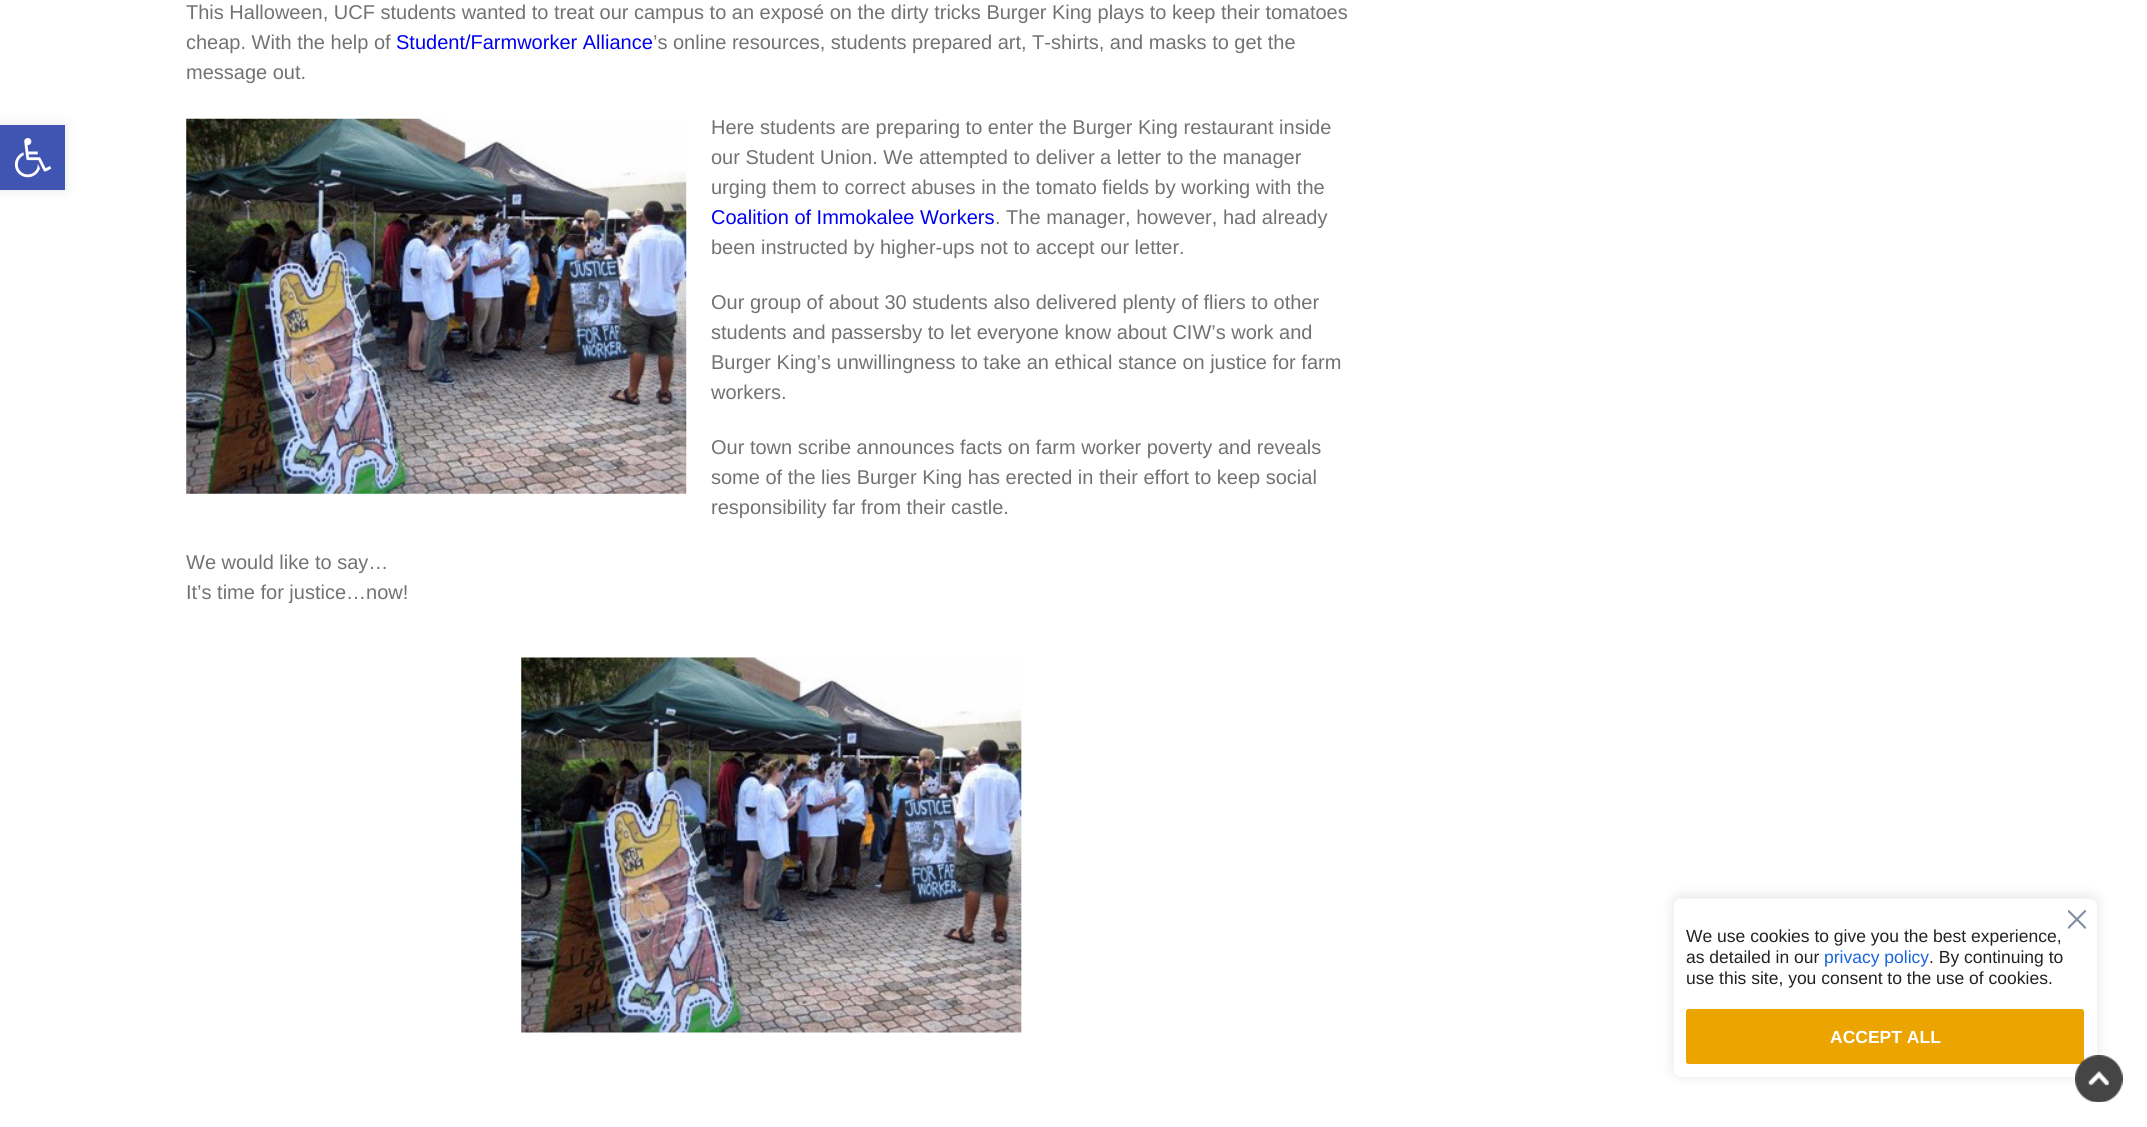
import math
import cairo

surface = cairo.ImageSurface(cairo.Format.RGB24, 2147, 1127)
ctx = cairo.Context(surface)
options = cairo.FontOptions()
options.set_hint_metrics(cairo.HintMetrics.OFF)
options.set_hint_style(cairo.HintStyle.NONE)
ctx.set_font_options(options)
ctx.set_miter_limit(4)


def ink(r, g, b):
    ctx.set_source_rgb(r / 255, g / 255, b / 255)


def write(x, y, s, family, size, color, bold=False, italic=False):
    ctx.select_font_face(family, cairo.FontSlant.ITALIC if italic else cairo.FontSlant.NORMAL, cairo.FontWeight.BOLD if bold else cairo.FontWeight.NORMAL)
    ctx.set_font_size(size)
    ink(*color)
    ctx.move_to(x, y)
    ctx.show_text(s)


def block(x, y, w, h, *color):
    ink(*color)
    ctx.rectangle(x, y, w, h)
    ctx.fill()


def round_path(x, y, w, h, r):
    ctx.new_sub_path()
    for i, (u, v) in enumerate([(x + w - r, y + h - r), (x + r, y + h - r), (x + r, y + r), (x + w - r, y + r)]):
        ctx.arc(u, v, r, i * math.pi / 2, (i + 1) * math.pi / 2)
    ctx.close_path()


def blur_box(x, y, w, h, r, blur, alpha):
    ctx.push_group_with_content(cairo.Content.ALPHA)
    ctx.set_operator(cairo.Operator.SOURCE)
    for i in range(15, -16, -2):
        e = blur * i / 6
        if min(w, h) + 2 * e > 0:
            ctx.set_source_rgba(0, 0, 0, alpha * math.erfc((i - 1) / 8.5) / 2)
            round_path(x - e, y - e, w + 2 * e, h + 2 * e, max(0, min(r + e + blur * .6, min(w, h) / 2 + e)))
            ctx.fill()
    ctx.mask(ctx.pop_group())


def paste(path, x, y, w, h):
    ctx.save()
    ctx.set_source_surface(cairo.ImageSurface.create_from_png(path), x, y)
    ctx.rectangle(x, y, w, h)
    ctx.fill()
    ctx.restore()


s1 = dict(family="Liberation Sans", size=20, color=(114, 114, 114))
s2 = dict(family="Liberation Sans", size=20, color=(0, 0, 238))
s3 = dict(family="Liberation Sans", size=17.5, color=(33, 33, 33))
s4 = dict(family="Liberation Sans", size=17.5, color=(24, 99, 220))
s5 = dict(family="Liberation Sans", size=17.5, color=(255, 255, 255), bold=True)

ink(255, 255, 255)
ctx.paint()
ink(0, 0, 0)
blur_box(0, 125, 65, 65, 0, 6, 0.1)
block(0, 125, 65, 65, 64, 84, 178)
paste("pic1.png", 14, 138, 38, 40)
write(186, 19, "This Halloween, UCF students wanted to treat our campus to an exposé on the dirty tricks Burger King plays to keep their tomatoes", **s1)
write(186, 49, "cheap. With the help of", **s1)
write(396, 49, "Student/Farmworker Alliance", **s2)
write(653, 49, "’s online resources, students prepared art, T-shirts, and masks to get the", **s1)
write(186, 79, "message out.", **s1)
paste("pic2.png", 186, 118, 501, 376)
write(711, 134, "Here students are preparing to enter the Burger King restaurant inside", **s1)
write(711, 164, "our Student Union. We attempted to deliver a letter to the manager", **s1)
write(711, 194, "urging them to correct abuses in the tomato fields by working with the", **s1)
write(711, 224, "Coalition of Immokalee Workers", **s2)
write(995, 224, ". The manager, however, had already", **s1)
write(711, 254, "been instructed by higher-ups not to accept our letter.", **s1)
write(711, 309, "Our group of about 30 students also delivered plenty of fliers to other", **s1)
write(711, 339, "students and passersby to let everyone know about CIW’s work and", **s1)
write(711, 369, "Burger King’s unwillingness to take an ethical stance on justice for farm", **s1)
write(711, 399, "workers.", **s1)
write(711, 454, "Our town scribe announces facts on farm worker poverty and reveals", **s1)
write(711, 484, "some of the lies Burger King has erected in their effort to keep social", **s1)
write(711, 514, "responsibility far from their castle.", **s1)
write(186, 569, "We would like to say…", **s1)
write(186, 599, "It’s time for justice…now!", **s1)
paste("pic3.png", 521, 657, 501, 376)
ink(172, 171, 171)
blur_box(1673, 896, 425, 180, 8, 6, 0.3)
ink(255, 255, 255)
round_path(1673.5, 898.5, 424, 179, 7.5)
ctx.fill_preserve()
ink(244, 244, 244)
ctx.set_line_width(1)
ctx.stroke()
paste("pic4.png", 2068, 910, 18, 19)
write(1686, 942, "We use cookies to give you the best experience,", **s3)
write(1686, 963, "as detailed in our", **s3)
write(1824, 963, "privacy policy", **s4)
write(1929, 963, ". By continuing to", **s3)
write(1686, 984, "use this site, you consent to the use of cookies.", **s3)
ink(236, 165, 0)
round_path(1687.5, 1010.5, 395, 52, 1)
ctx.fill_preserve()
ctx.set_line_width(3)
ctx.stroke()
write(1830, 1043, "ACCEPT ALL", **s5)
paste("pic5.png", 2075, 1055, 48, 47)
surface.write_to_png("screenshot.png")
